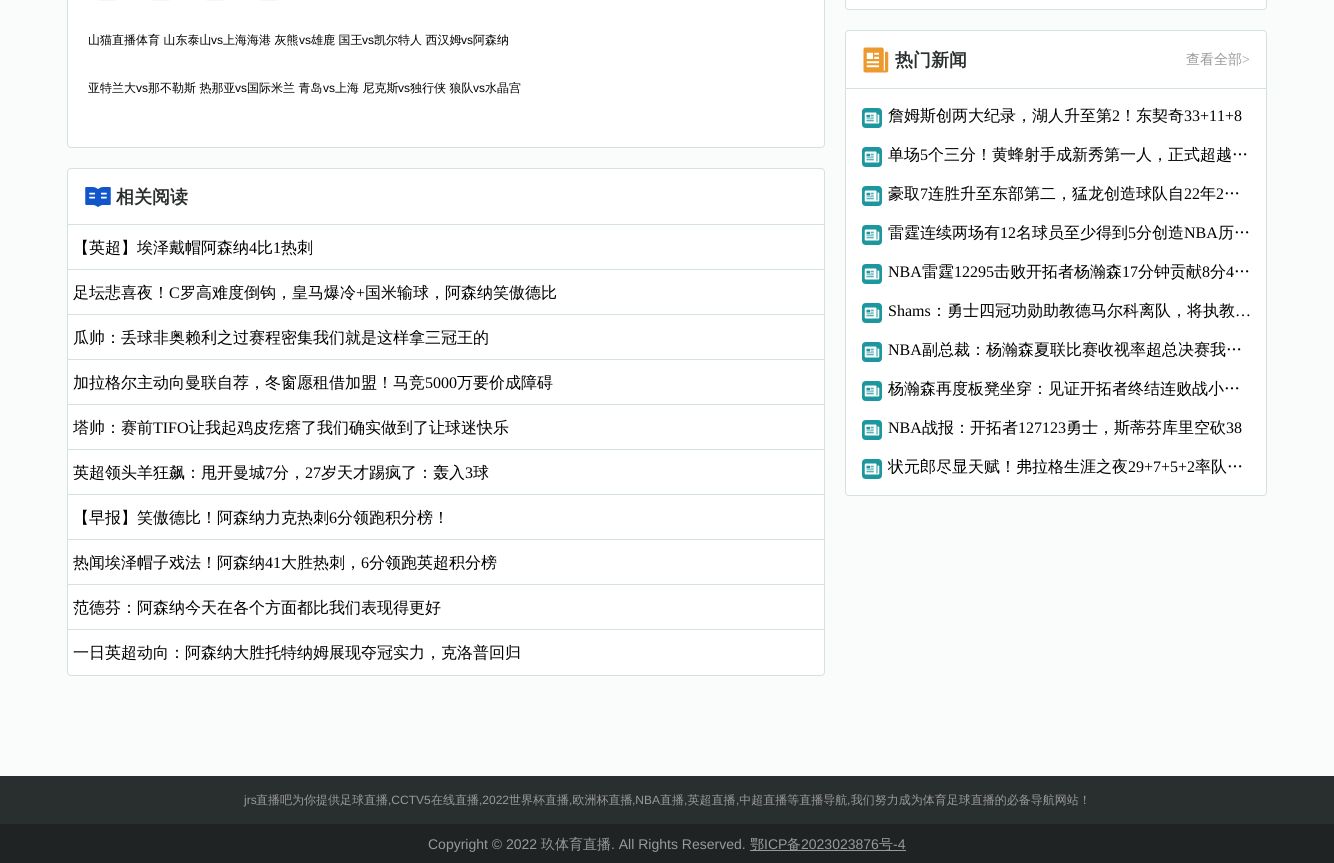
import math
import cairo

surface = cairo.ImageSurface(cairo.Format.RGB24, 1334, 863)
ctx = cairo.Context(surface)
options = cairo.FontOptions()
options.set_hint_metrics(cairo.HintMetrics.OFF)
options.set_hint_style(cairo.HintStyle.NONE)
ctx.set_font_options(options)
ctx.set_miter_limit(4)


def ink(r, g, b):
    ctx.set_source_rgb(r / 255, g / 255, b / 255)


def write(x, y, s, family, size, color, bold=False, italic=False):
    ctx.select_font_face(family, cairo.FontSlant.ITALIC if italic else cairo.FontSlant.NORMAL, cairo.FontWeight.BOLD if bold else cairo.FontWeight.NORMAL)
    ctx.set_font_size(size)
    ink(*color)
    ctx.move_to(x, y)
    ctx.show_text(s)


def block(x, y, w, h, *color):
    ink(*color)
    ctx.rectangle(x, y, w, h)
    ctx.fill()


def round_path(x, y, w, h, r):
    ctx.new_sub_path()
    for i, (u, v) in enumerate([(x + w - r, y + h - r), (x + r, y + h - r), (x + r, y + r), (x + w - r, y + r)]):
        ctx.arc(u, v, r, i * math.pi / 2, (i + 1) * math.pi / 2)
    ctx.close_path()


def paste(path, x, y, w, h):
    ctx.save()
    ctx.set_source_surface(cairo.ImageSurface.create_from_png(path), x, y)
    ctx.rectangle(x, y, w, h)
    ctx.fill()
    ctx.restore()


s1 = dict(family="WenQuanYi Zen Hei Medium", size=12, color=(0, 0, 0))
s2 = dict(family="Liberation Sans", size=12, color=(0, 0, 0))
s3 = dict(family="WenQuanYi Zen Hei", size=18, color=(41, 46, 46), bold=True)
s4 = dict(family="WenQuanYi Zen Hei Medium", size=16, color=(0, 0, 0))
s5 = dict(family="Liberation Serif", size=16, color=(0, 0, 0))
s6 = dict(family="WenQuanYi Zen Hei Medium", size=14, color=(153, 153, 153))
s7 = dict(family="Liberation Serif", size=14, color=(153, 153, 153))
s8 = dict(family="Liberation Sans", size=12, color=(153, 153, 153))
s9 = dict(family="WenQuanYi Zen Hei Medium", size=12, color=(153, 153, 153))
s10 = dict(family="Liberation Sans", size=14, color=(153, 153, 153))

ink(250, 252, 252)
ctx.paint()
ink(255, 255, 255)
round_path(67.5, -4.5, 757, 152, 3.5)
ctx.fill_preserve()
ink(211, 225, 226)
ctx.set_line_width(1)
ctx.stroke()
ink(245, 245, 245)
round_path(88, -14, 38, 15, 14)
ctx.fill()
round_path(142, -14, 38, 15, 14)
ctx.fill()
round_path(196, -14, 38, 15, 14)
ctx.fill()
round_path(250, -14, 38, 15, 14)
ctx.fill()
write(88, 44, "山猫直播体育 山东泰山", **s1)
write(211, 44, "vs", **s2)
write(223, 44, "上海海港 灰熊", **s1)
write(299, 44, "vs", **s2)
write(311, 44, "雄鹿 国王", **s1)
write(362, 44, "vs", **s2)
write(374, 44, "凯尔特人 西汉姆", **s1)
write(461, 44, "vs", **s2)
write(473, 44, "阿森纳", **s1)
write(88, 92, "亚特兰大", **s1)
write(136, 92, "vs", **s2)
write(148, 92, "那不勒斯 热那亚", **s1)
write(235, 92, "vs", **s2)
write(247, 92, "国际米兰 青岛", **s1)
write(323, 92, "vs", **s2)
write(335, 92, "上海 尼克斯", **s1)
write(398, 92, "vs", **s2)
write(410, 92, "独行侠 狼队", **s1)
write(473, 92, "vs", **s2)
write(485, 92, "水晶宫", **s1)
ink(255, 255, 255)
round_path(67.5, 168.5, 757, 507, 3.5)
ctx.fill_preserve()
ink(211, 225, 226)
ctx.stroke()
block(68, 224, 756, 1, 211, 225, 226)
paste("pic1.png", 85, 187, 26, 20)
write(116, 203, "相关阅读", **s3)
block(68, 269, 756, 1, 211, 225, 226)
write(73, 253, "【英超】埃泽戴帽阿森纳", **s4)
write(249, 253, "4", **s5)
write(257, 253, "比", **s4)
write(273, 253, "1", **s5)
write(281, 253, "热刺", **s4)
block(68, 314, 756, 1, 211, 225, 226)
write(73, 298, "足坛悲喜夜！", **s4)
write(169, 298, "C", **s5)
write(180, 298, "罗高难度倒钩，皇马爆冷", **s4)
write(356, 298, "+", **s5)
write(365, 298, "国米输球，阿森纳笑傲德比", **s4)
block(68, 359, 756, 1, 211, 225, 226)
write(73, 343, "瓜帅：丢球非奥赖利之过赛程密集我们就是这样拿三冠王的", **s4)
block(68, 404, 756, 1, 211, 225, 226)
write(73, 388, "加拉格尔主动向曼联自荐，冬窗愿租借加盟！马竞", **s4)
write(425, 388, "5000", **s5)
write(457, 388, "万要价成障碍", **s4)
block(68, 449, 756, 1, 211, 225, 226)
write(73, 433, "塔帅：赛前", **s4)
write(153, 433, "TIFO", **s5)
write(189, 433, "让我起鸡皮疙瘩了我们确实做到了让球迷快乐", **s4)
block(68, 494, 756, 1, 211, 225, 226)
write(73, 478, "英超领头羊狂飙：甩开曼城", **s4)
write(265, 478, "7", **s5)
write(273, 478, "分，", **s4)
write(305, 478, "27", **s5)
write(321, 478, "岁天才踢疯了：轰入", **s4)
write(465, 478, "3", **s5)
write(473, 478, "球", **s4)
block(68, 539, 756, 1, 211, 225, 226)
write(73, 523, "【早报】笑傲德比！阿森纳力克热刺", **s4)
write(329, 523, "6", **s5)
write(337, 523, "分领跑积分榜！", **s4)
block(68, 584, 756, 1, 211, 225, 226)
write(73, 568, "热闻埃泽帽子戏法！阿森纳", **s4)
write(265, 568, "41", **s5)
write(281, 568, "大胜热刺，", **s4)
write(361, 568, "6", **s5)
write(369, 568, "分领跑英超积分榜", **s4)
block(68, 629, 756, 1, 211, 225, 226)
write(73, 613, "范德芬：阿森纳今天在各个方面都比我们表现得更好", **s4)
write(73, 658, "一日英超动向：阿森纳大胜托特纳姆展现夺冠实力，克洛普回归", **s4)
ink(255, 255, 255)
round_path(845.5, -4.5, 421, 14, 3.5)
ctx.fill_preserve()
ink(211, 225, 226)
ctx.stroke()
ink(255, 255, 255)
round_path(845.5, 30.5, 421, 465, 3.5)
ctx.fill_preserve()
ink(211, 225, 226)
ctx.stroke()
block(846, 88, 420, 1, 211, 225, 226)
paste("pic2.png", 863, 47, 26, 26)
write(895, 66, "热门新闻", **s3)
write(1186, 64, "查看全部", **s6)
write(1242, 64, ">", **s7)
paste("pic3.png", 862, 108, 20, 20)
write(888, 121, "詹姆斯创两大纪录，湖人升至第", **s4)
write(1112, 121, "2", **s5)
write(1120, 121, "！东契奇", **s4)
write(1184, 121, "33+11+8", **s5)
paste("pic3.png", 862, 147, 20, 20)
write(888, 160, "单场", **s4)
write(920, 160, "5", **s5)
write(928, 160, "个三分！黄蜂射手成新秀第一人，正式超越…", **s4)
paste("pic3.png", 862, 186, 20, 20)
write(888, 199, "豪取", **s4)
write(920, 199, "7", **s5)
write(928, 199, "连胜升至东部第二，猛龙创造球队自", **s4)
write(1184, 199, "22", **s5)
write(1200, 199, "年", **s4)
write(1216, 199, "2", **s5)
write(1224, 199, "…", **s4)
paste("pic3.png", 862, 225, 20, 20)
write(888, 238, "雷霆连续两场有", **s4)
write(1000, 238, "12", **s5)
write(1016, 238, "名球员至少得到", **s4)
write(1128, 238, "5", **s5)
write(1136, 238, "分创造", **s4)
write(1184, 238, "NBA", **s5)
write(1218, 238, "历…", **s4)
paste("pic3.png", 862, 264, 20, 20)
write(888, 277, "NBA", **s5)
write(922, 277, "雷霆", **s4)
write(954, 277, "12295", **s5)
write(994, 277, "击败开拓者杨瀚森", **s4)
write(1122, 277, "17", **s5)
write(1138, 277, "分钟贡献", **s4)
write(1202, 277, "8", **s5)
write(1210, 277, "分", **s4)
write(1226, 277, "4", **s5)
write(1234, 277, "…", **s4)
paste("pic3.png", 862, 303, 20, 20)
write(888, 316, "Shams", **s5)
write(931, 316, "：勇士四冠功勋助教德马尔科离队，将执教", **s4)
write(1235, 316, "…", **s5)
paste("pic3.png", 862, 342, 20, 20)
write(888, 355, "NBA", **s5)
write(922, 355, "副总裁：杨瀚森夏联比赛收视率超总决赛我…", **s4)
paste("pic3.png", 862, 381, 20, 20)
write(888, 394, "杨瀚森再度板凳坐穿：见证开拓者终结连败战小…", **s4)
paste("pic3.png", 862, 420, 20, 20)
write(888, 433, "NBA", **s5)
write(922, 433, "战报：开拓者", **s4)
write(1018, 433, "127123", **s5)
write(1066, 433, "勇士，斯蒂芬库里空砍", **s4)
write(1226, 433, "38", **s5)
paste("pic3.png", 862, 459, 20, 20)
write(888, 472, "状元郎尽显天赋！弗拉格生涯之夜", **s4)
write(1128, 472, "29+7+5+2", **s5)
write(1195, 472, "率队…", **s4)
block(0, 776, 1334, 48, 41, 46, 46)
write(244, 804, "jrs", **s8)
write(256, 804, "直播吧为你提供足球直播", **s9)
write(388, 804, ",CCTV5", **s8)
write(431, 804, "在线直播", **s9)
write(479, 804, ",2022", **s8)
write(509, 804, "世界杯直播 欧洲杯直播", **s9)
write(632, 804, ",NBA", **s8)
write(660, 804, "直播 英超直播 中超直播等直播导航 我们努力成为体育足球直播的必备导航网站！", **s9)
write(569, 804, ",", **s8)
write(684, 804, ",", **s8)
write(736, 804, ",", **s8)
write(847, 804, ",", **s8)
block(0, 824, 1334, 39, 31, 35, 35)
write(428, 849, "Copyright © 2022", **s10)
write(541, 849, "玖体育直播", **s6)
write(611, 849, ". All Rights Reserved.", **s10)
block(750, 850, 156, 1, 153, 153, 153)
write(750, 849, "鄂", **s6)
write(764, 849, "ICP", **s10)
write(787, 849, "备", **s6)
write(801, 849, "2023023876", **s10)
write(879, 849, "号", **s6)
write(893, 849, "-4", **s10)
surface.write_to_png("screenshot.png")
